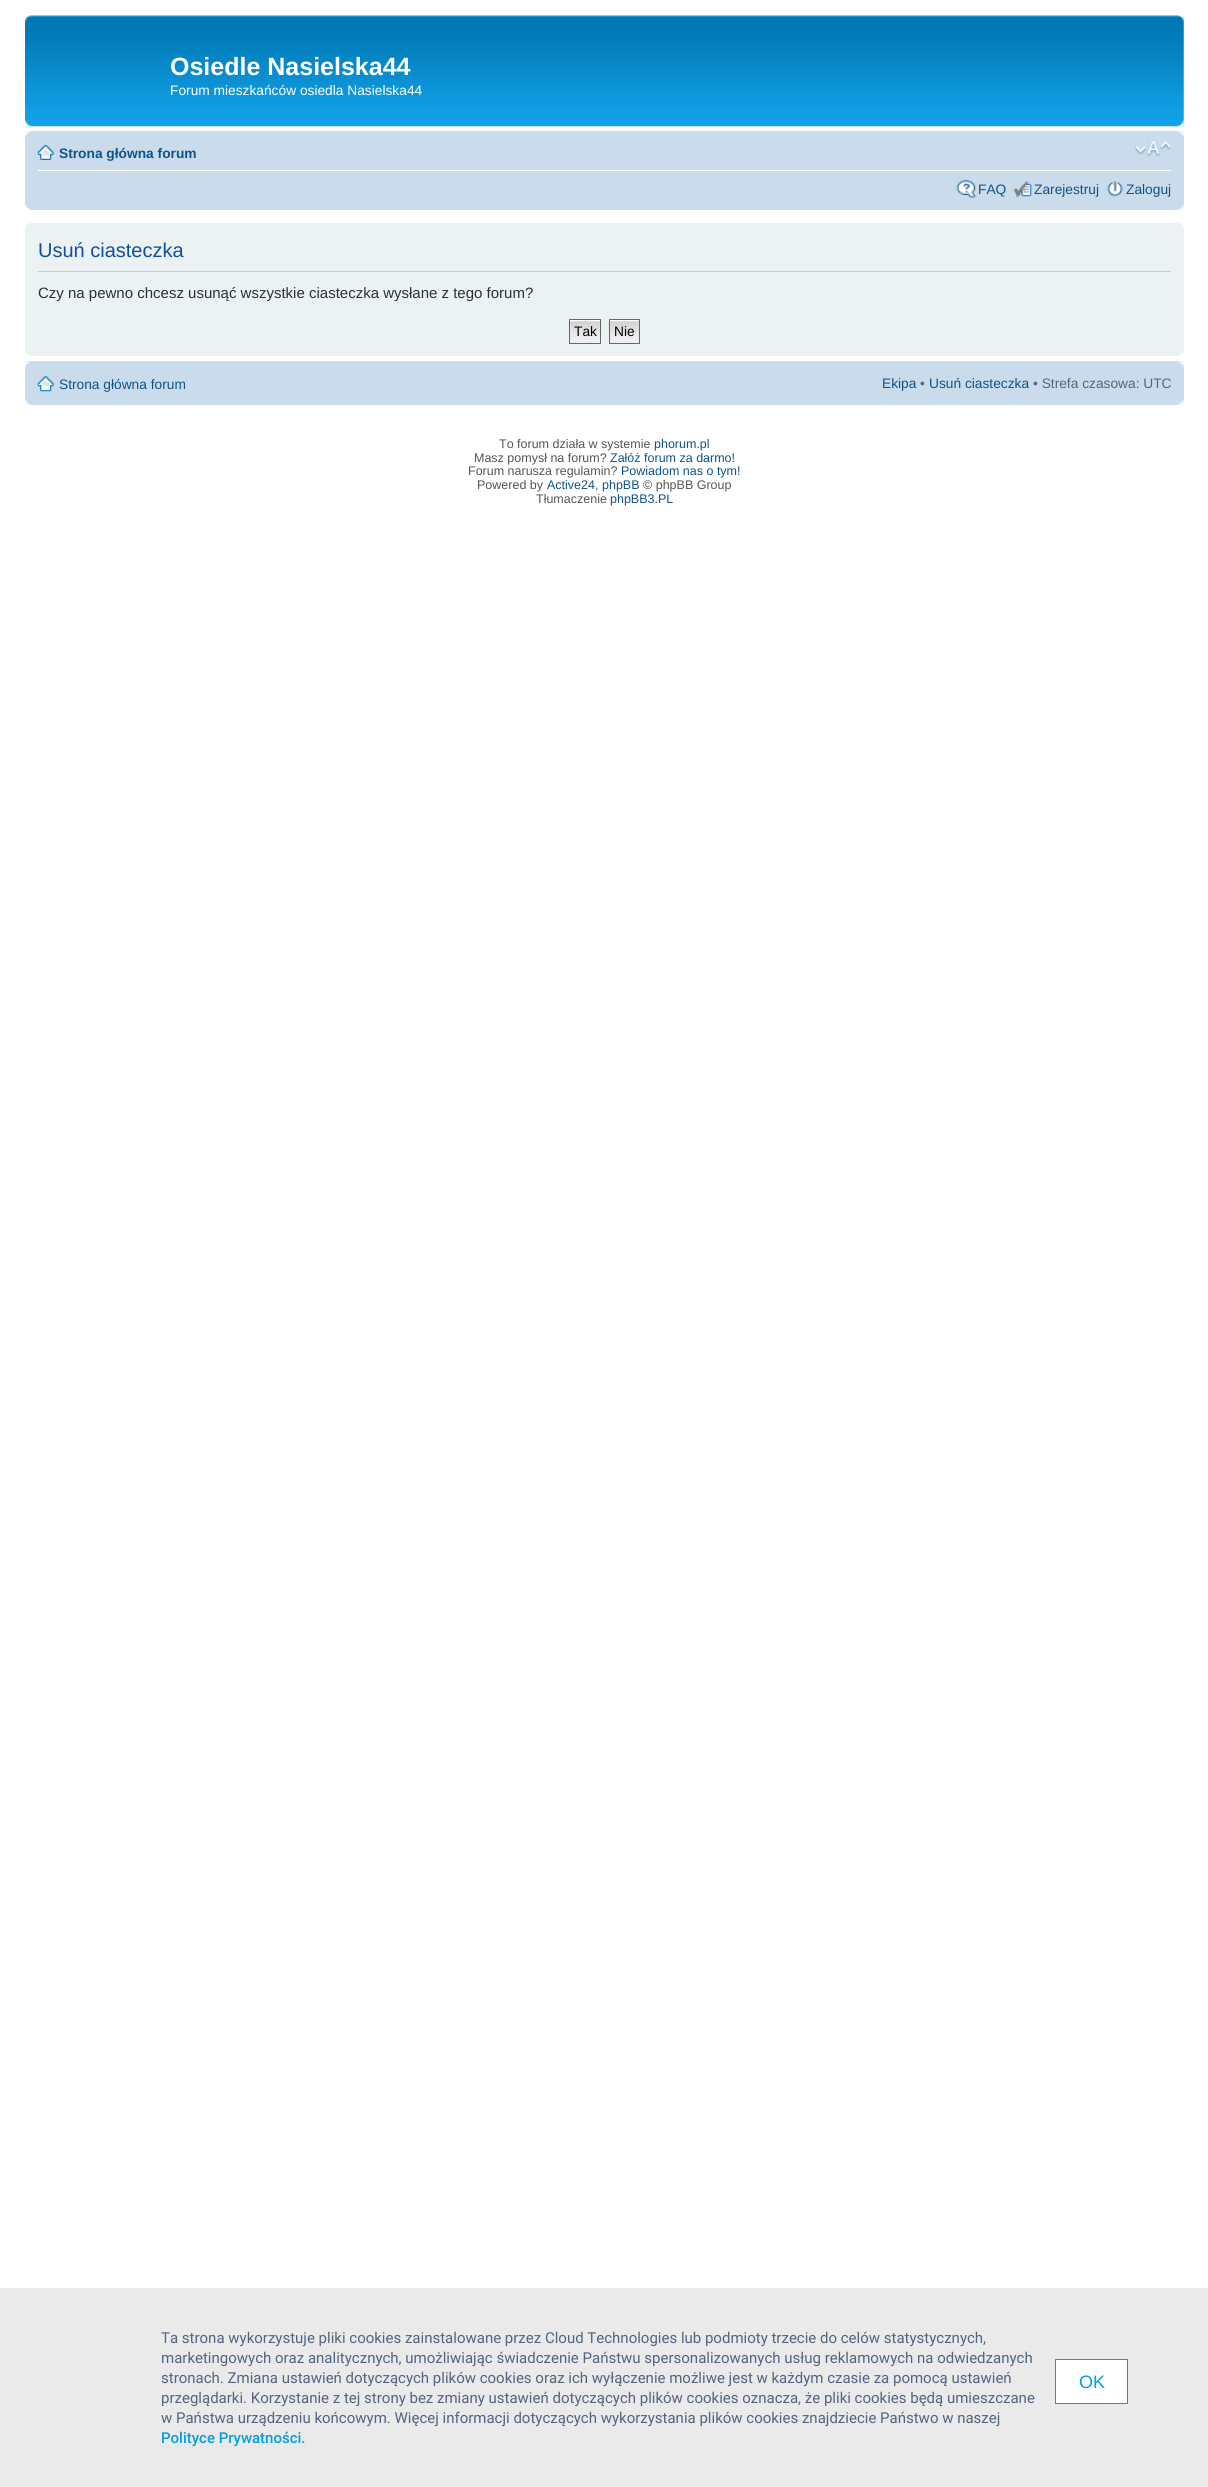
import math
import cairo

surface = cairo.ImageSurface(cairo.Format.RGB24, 1208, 2487)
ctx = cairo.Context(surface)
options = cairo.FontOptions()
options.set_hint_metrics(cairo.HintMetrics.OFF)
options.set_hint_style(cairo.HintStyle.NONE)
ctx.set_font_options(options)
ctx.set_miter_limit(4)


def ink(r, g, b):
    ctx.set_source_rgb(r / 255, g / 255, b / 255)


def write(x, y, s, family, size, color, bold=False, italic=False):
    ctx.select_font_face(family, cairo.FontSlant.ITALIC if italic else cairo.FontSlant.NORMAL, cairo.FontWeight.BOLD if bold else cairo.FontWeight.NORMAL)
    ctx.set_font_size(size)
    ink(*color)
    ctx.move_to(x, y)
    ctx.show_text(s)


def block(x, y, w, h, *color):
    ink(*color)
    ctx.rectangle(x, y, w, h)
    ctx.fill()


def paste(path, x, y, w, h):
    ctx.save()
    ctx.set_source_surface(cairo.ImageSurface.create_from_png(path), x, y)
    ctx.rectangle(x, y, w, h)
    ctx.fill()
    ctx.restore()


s1 = dict(family="Liberation Sans", size=25, color=(255, 255, 255), bold=True)
s2 = dict(family="Liberation Sans", size=13.75, color=(255, 255, 255))
s3 = dict(family="Liberation Sans", size=13.75, color=(16, 82, 137), bold=True)
s4 = dict(family="Liberation Sans", size=13.75, color=(16, 82, 137))
s5 = dict(family="Liberation Sans", size=20, color=(17, 80, 152))
s6 = dict(family="Liberation Sans", size=15, color=(40, 49, 63))
s7 = dict(family="Liberation Sans", size=13.75, color=(0, 0, 0))
s8 = dict(family="Liberation Sans", size=13.75, color=(83, 100, 130))
s9 = dict(family="Liberation Sans", size=12.5, color=(85, 85, 85))
s10 = dict(family="Liberation Sans", size=12.5, color=(16, 82, 137))
s11 = dict(family="Roboto", size=15, color=(83, 100, 130))
s12 = dict(family="Roboto Medium", size=15, color=(0, 159, 223))
s13 = dict(family="Liberation Sans", size=18, color=(0, 159, 223))

ink(255, 255, 255)
ctx.paint()
paste("pic1.png", 25, 15, 1159, 112)
paste("pic2.png", 25, 15, 7, 7)
paste("pic3.png", 1177, 15, 7, 7)
write(170, 75, "Osiedle Nasielska44", **s1)
write(170, 95, "Forum mieszkańców osiedla Nasielska44", **s2)
paste("pic4.png", 25, 120, 7, 7)
paste("pic5.png", 1177, 120, 7, 7)
block(25, 131, 1159, 79, 202, 220, 235)
paste("pic6.png", 25, 131, 6, 7)
paste("pic7.png", 1177, 131, 7, 7)
block(38, 170, 1133, 1, 255, 255, 255)
paste("pic8.png", 37, 145, 17, 15)
write(59, 158, "Strona główna forum", **s3)
paste("pic9.png", 1135, 141, 36, 16)
paste("pic10.png", 956, 180, 21, 18)
write(978, 194, "FAQ", **s4)
paste("pic11.png", 1013, 181, 19, 17)
write(1034, 194, "Zarejestruj", **s4)
paste("pic12.png", 1107, 181, 16, 16)
write(1126, 194, "Zaloguj", **s4)
paste("pic13.png", 25, 204, 6, 6)
paste("pic14.png", 1177, 204, 7, 6)
block(25, 223, 1159, 133, 236, 241, 243)
paste("pic15.png", 25, 223, 6, 5)
paste("pic16.png", 1178, 223, 6, 5)
block(38, 271, 1133, 1, 204, 204, 204)
write(38, 257, "Usuń ciasteczka", **s5)
write(38, 298, "Czy na pewno chcesz usunąć wszystkie ciasteczka wysłane z tego forum?", **s6)
paste("pic17.png", 568, 320, 34, 24)
ctx.rectangle(569.5, 319.5, 31, 24)
ink(102, 102, 102)
ctx.set_line_width(1)
ctx.stroke()
write(574, 336, "Tak", **s7)
paste("pic18.png", 608, 320, 31, 24)
ctx.rectangle(609.5, 319.5, 30, 24)
ink(102, 102, 102)
ctx.stroke()
write(614, 336, "Nie", **s7)
paste("pic19.png", 25, 350, 6, 6)
paste("pic20.png", 1178, 351, 6, 5)
block(25, 361, 1159, 44, 202, 220, 235)
paste("pic6.png", 25, 361, 6, 7)
paste("pic7.png", 1177, 361, 7, 7)
paste("pic21.png", 37, 376, 17, 16)
write(59, 389, "Strona główna forum", **s4)
write(882, 388, "Ekipa", **s4)
write(920, 388, "•", **s8)
write(929, 388, "Usuń ciasteczka", **s4)
write(1033, 388, "• Strefa czasowa: UTC", **s8)
paste("pic13.png", 25, 399, 6, 6)
paste("pic14.png", 1177, 399, 7, 6)
write(499, 448, "To forum działa w systemie", **s9)
write(654, 448, "phorum.pl", **s10)
write(474, 462, "Masz pomysł na forum?", **s9)
write(610, 462, "Załóż forum za darmo!", **s10)
write(468, 475, "Forum narusza regulamin?", **s9)
write(621, 475, "Powiadom nas o tym!", **s10)
write(477, 489, "Powered by", **s9)
write(547, 489, "Active24", **s10)
write(595, 489, ",", **s9)
write(602, 489, "phpBB", **s10)
write(643, 489, "© phpBB Group", **s9)
write(536, 503, "Tłumaczenie", **s9)
write(610, 503, "phpBB3.PL", **s10)
block(0, 2288, 1208, 199, 234, 234, 234)
write(161, 2343, "Ta strona wykorzystuje pliki cookies zainstalowane przez Cloud Technologies lub podmioty trzecie do celów statystycznych,", **s11)
write(161, 2363, "marketingowych oraz analitycznych, umożliwiając świadczenie Państwu spersonalizowanych usług reklamowych na odwiedzanych", **s11)
write(161, 2383, "stronach. Zmiana ustawień dotyczących plików cookies oraz ich wyłączenie możliwe jest w każdym czasie za pomocą ustawień", **s11)
write(161, 2403, "przeglądarki. Korzystanie z tej strony bez zmiany ustawień dotyczących plików cookies oznacza, że pliki cookies będą umieszczane", **s11)
write(161, 2423, "w Państwa urządzeniu końcowym. Więcej informacji dotyczących wykorzystania plików cookies znajdziecie Państwo w naszej", **s11)
write(161, 2443, "Polityce Prywatności.", **s12)
ink(255, 255, 255)
ctx.rectangle(1055.5, 2359.5, 72, 44)
ctx.fill_preserve()
ink(0, 159, 223)
ctx.stroke()
write(1079, 2388, "OK", **s13)
surface.write_to_png("screenshot.png")
